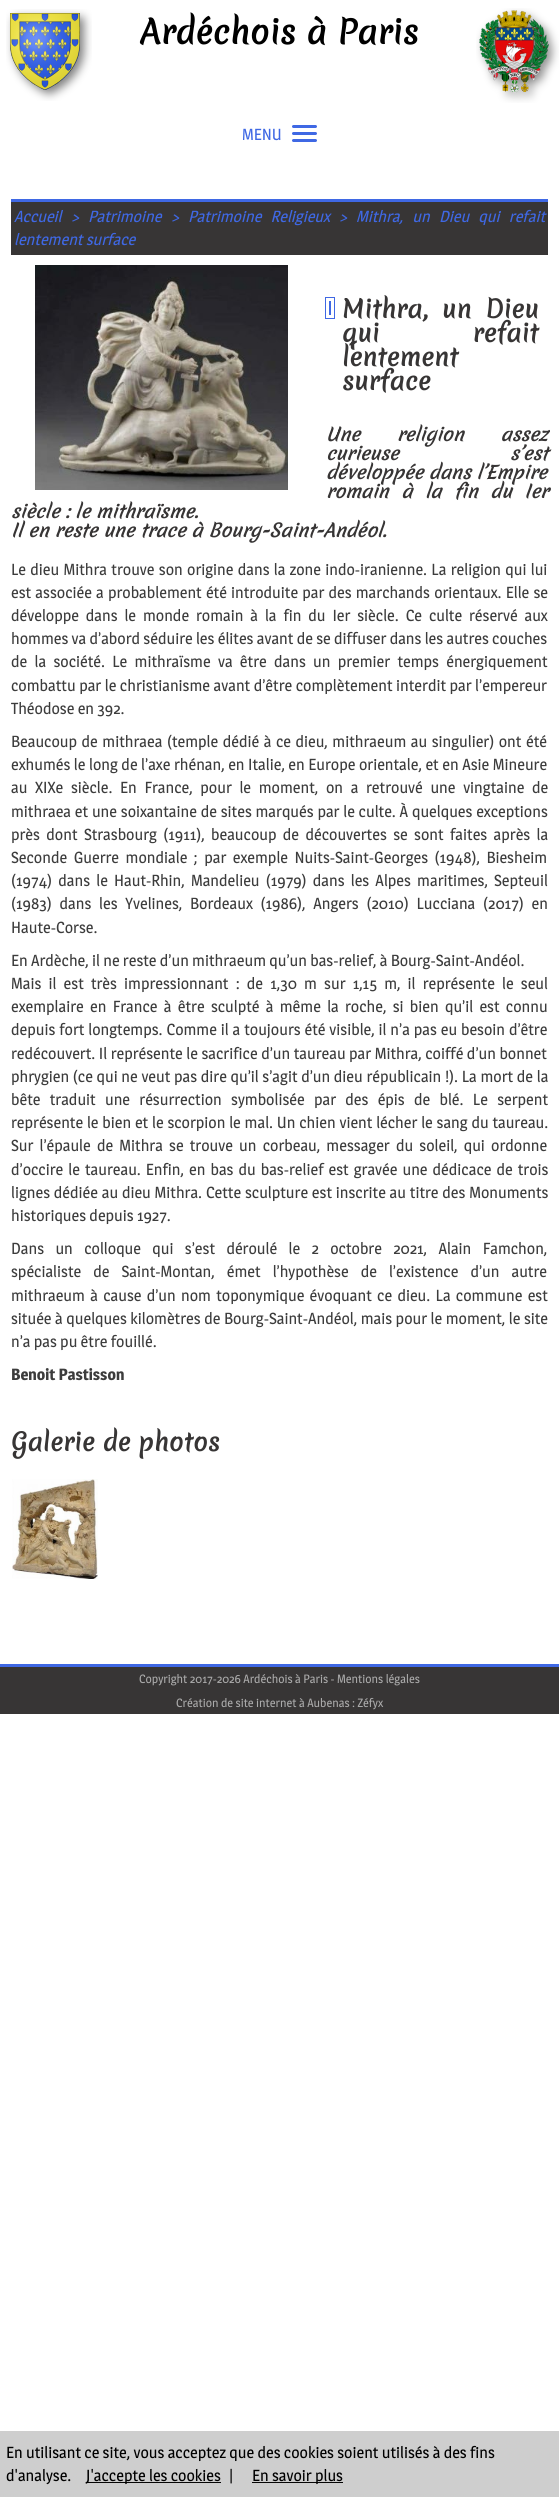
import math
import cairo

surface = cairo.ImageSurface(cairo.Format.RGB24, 559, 2497)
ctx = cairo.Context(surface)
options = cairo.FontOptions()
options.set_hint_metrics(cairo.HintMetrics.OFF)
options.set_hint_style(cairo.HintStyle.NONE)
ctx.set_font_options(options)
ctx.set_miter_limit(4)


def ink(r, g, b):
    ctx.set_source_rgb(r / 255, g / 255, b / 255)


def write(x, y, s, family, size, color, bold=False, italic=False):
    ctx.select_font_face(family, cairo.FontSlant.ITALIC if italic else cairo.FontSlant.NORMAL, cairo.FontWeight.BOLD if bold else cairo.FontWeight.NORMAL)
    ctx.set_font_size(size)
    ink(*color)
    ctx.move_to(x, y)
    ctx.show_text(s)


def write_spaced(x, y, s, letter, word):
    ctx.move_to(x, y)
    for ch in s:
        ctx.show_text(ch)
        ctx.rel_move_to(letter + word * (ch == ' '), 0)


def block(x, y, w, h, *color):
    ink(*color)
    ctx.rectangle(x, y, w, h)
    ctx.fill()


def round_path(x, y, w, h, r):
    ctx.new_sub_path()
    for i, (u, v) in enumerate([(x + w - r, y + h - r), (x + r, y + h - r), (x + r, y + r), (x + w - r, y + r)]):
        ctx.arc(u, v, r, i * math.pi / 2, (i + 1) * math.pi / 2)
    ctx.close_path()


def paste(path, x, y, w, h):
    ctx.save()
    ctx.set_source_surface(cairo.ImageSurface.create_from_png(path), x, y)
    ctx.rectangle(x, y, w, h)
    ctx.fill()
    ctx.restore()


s1 = dict(family="Merienda", size=32, color=(0, 0, 0), bold=True)
s2 = dict(family="Magra", size=16, color=(63, 104, 228))
s3 = dict(family="Magra", size=16, color=(63, 104, 228), italic=True)
s4 = dict(family="Merienda", size=24, color=(55, 53, 53), bold=True)
s5 = dict(family="Merienda", size=17.6, color=(55, 53, 53), bold=True, italic=True)
s6 = dict(family="Magra", size=16, color=(60, 60, 60))
s7 = dict(family="Magra SemiBold", size=16, color=(60, 60, 60))
s8 = dict(family="Magra", size=12, color=(170, 170, 170))
s9 = dict(family="Magra", size=16, color=(0, 0, 0))

ink(255, 255, 255)
ctx.paint()
paste("pic1.png", 6, 9, 86, 92)
write(140, 44, "Ardéchois à Paris", **s1)
paste("pic2.png", 476, 8, 83, 95)
write(242, 140, "MENU", **s2)
round_path(292, 132, 25, 3, 1.5)
ctx.fill()
round_path(292, 125, 25, 3, 1.5)
ctx.fill()
round_path(292, 139, 25, 3, 1.5)
ctx.fill()
block(11, 202, 537, 53, 55, 53, 53)
block(11, 199, 537, 3, 63, 104, 228)
write(14, 222, "Accueil", **s3)
write(71, 222, ">", **s3)
write(88, 222, "Patrimoine", **s3)
write(171, 222, ">", **s3)
write_spaced(188, 222, "Patrimoine Religieux", 0, 6)
write(339, 222, ">", **s3)
write_spaced(356, 222, "Mithra, un Dieu qui refait", 0, 6)
write(14, 245, "lentement surface", **s3)
paste("pic3.png", 35, 265, 253, 225)
ctx.rectangle(325.5, 297.5, 9, 21)
ctx.set_line_width(1)
ctx.stroke()
ctx.rectangle(327.5, 299.5, 5, 17)
ctx.fill_preserve()
ink(255, 255, 255)
ctx.set_line_width(3)
ctx.stroke()
ctx.select_font_face("Merienda", cairo.FontSlant.NORMAL, cairo.FontWeight.BOLD)
ctx.set_font_size(24)
ink(55, 53, 53)
write_spaced(342, 318, "Mithra, un Dieu", 0, 6)
write_spaced(342, 342, "qui refait", 0, 85)
write(342, 366, "lentement", **s4)
write(342, 390, "surface", **s4)
ctx.select_font_face("Merienda", cairo.FontSlant.ITALIC, cairo.FontWeight.BOLD)
ctx.set_font_size(17.6)
write_spaced(326, 441, "Une religion assez", 0, 31)
write(326, 460, "curieuse", **s5)
write(510, 460, "s’est", **s5)
write(326, 479, "développée dans l’Empire", **s5)
write_spaced(326, 498, "romain à la fin du Ier", 0, 6.75)
write(11, 518, "siècle : le mithraïsme.", **s5)
write(11, 537, "Il en reste une trace à Bourg-Saint-Andéol.", **s5)
ctx.select_font_face("Magra")
ctx.set_font_size(16)
ink(60, 60, 60)
write_spaced(11, 575, "Le dieu Mithra trouve son origine dans la zone indo-iranienne. La religion qui lui", 0, 1)
write_spaced(11, 598, "est associée a probablement été introduite par des marchands orientaux. Elle se", 0, 0.9)
write_spaced(11, 621, "développe dans le monde romain à la fin du Ier siècle. Ce culte réservé aux", 0, 3.6)
write(11, 644, "hommes va d’abord séduire les élites avant de se diffuser dans les autres couches", **s6)
write_spaced(11, 667, "de la société. Le mithraïsme va être dans un premier temps énergiquement", 0, 4)
write_spaced(11, 691, "combattu par le christianisme avant d’être complètement interdit par l’empereur", 0, 0.25)
write(11, 714, "Théodose en 392.", **s6)
write_spaced(11, 747, "Beaucoup de mithraea (temple dédié à ce dieu, mithraeum au singulier) ont été", 0, 1.25)
write_spaced(11, 770, "exhumés le long de l’axe rhénan, en Italie, en Europe orientale, et en Asie Mineure", 0, 0.25)
write_spaced(11, 793, "au XIXe siècle. En France, pour le moment, on a retrouvé une vingtaine de", 0, 4.4)
write_spaced(11, 817, "mithraea et une soixantaine de sites marqués par le culte. À quelques exceptions", 0, 0.5)
write_spaced(11, 840, "près dont Strasbourg (1911), beaucoup de découvertes se sont faites après la", 0, 3.1)
write_spaced(11, 863, "Seconde Guerre mondiale ; par exemple Nuits-Saint-Georges (1948), Biesheim", 0, 3.25)
write_spaced(11, 886, "(1974) dans le Haut-Rhin, Mandelieu (1979) dans les Alpes maritimes, Septeuil", 0, 2.9)
write_spaced(11, 909, "(1983) dans les Yvelines, Bordeaux (1986), Angers (2010) Lucciana (2017) en", 0, 4.5)
write(11, 933, "Haute-Corse.", **s6)
write(11, 966, "En Ardèche, il ne reste d’un mithraeum qu’un bas-relief, à Bourg-Saint-Andéol.", **s6)
write_spaced(11, 989, "Mais il est très impressionnant : de 1,30 m sur 1,15 m, il représente le seul", 0, 3.9)
write_spaced(11, 1012, "exemplaire en France à être sculpté à même la roche, si bien qu’il est connu", 0, 3)
write_spaced(11, 1035, "depuis fort longtemps. Comme il a toujours été visible, il n’a pas eu besoin d’être", 0, 0.6)
write_spaced(11, 1059, "redécouvert. Il représente le sacrifice d’un taureau par Mithra, coiffé d’un bonnet", 0, 0.25)
write_spaced(11, 1082, "phrygien (ce qui ne veut pas dire qu’il s’agit d’un dieu républicain !). La mort de la", 0, 0.4)
write_spaced(11, 1105, "bête traduit une résurrection symbolisée par des épis de blé. Le serpent", 0, 6)
write_spaced(11, 1128, "représente le bien et le scorpion le mal. Un chien vient lécher le sang du taureau.", 0, 0.5)
write_spaced(11, 1151, "Sur l’épaule de Mithra se trouve un corbeau, messager du soleil, qui ordonne", 0, 2.9)
write_spaced(11, 1175, "d’occire le taureau. Enfin, en bas du bas-relief est gravée une dédicace de trois", 0, 1.75)
write_spaced(11, 1198, "lignes dédiée au dieu Mithra. Cette sculpture est inscrite au titre des Monuments", 0, 0.5)
write(11, 1221, "historiques depuis 1927.", **s6)
write_spaced(11, 1254, "Dans un colloque qui s’est déroulé le 2 octobre 2021, Alain Famchon,", 0, 8.1)
write_spaced(11, 1277, "spécialiste de Saint-Montan, émet l’hypothèse de l’existence d’un autre", 0, 8.75)
write_spaced(11, 1301, "mithraeum à cause d’un nom toponymique évoquant ce dieu. La commune est", 0, 2)
write_spaced(11, 1324, "située à quelques kilomètres de Bourg-Saint-Andéol, mais pour le moment, le site", 0, 0.25)
write(11, 1347, "n’a pas pu être fouillé.", **s6)
write(11, 1380, "Benoit Pastisson", **s7)
write(11, 1451, "Galerie de photos", **s4)
paste("pic4.png", 12, 1479, 86, 100)
block(0, 1667, 559, 47, 55, 53, 53)
block(0, 1664, 559, 3, 63, 104, 228)
write(139, 1683, "Copyright 2017-2026 Ardéchois à Paris - Mentions légales", **s8)
write(176, 1707, "Création de site internet à Aubenas : Zéfyx", **s8)
block(0, 2431, 559, 66, 206, 206, 206)
write(6, 2458, "En utilisant ce site, vous acceptez que des cookies soient utilisés à des fins", **s9)
write(6, 2481, "d'analyse.", **s9)
block(86, 2482, 135, 1, 5, 5, 5)
write(86, 2481, "J'accepte les cookies", **s9)
write(229, 2481, "|", **s9)
block(252, 2482, 91, 1, 5, 5, 5)
write(252, 2481, "En savoir plus", **s9)
surface.write_to_png("screenshot.png")
